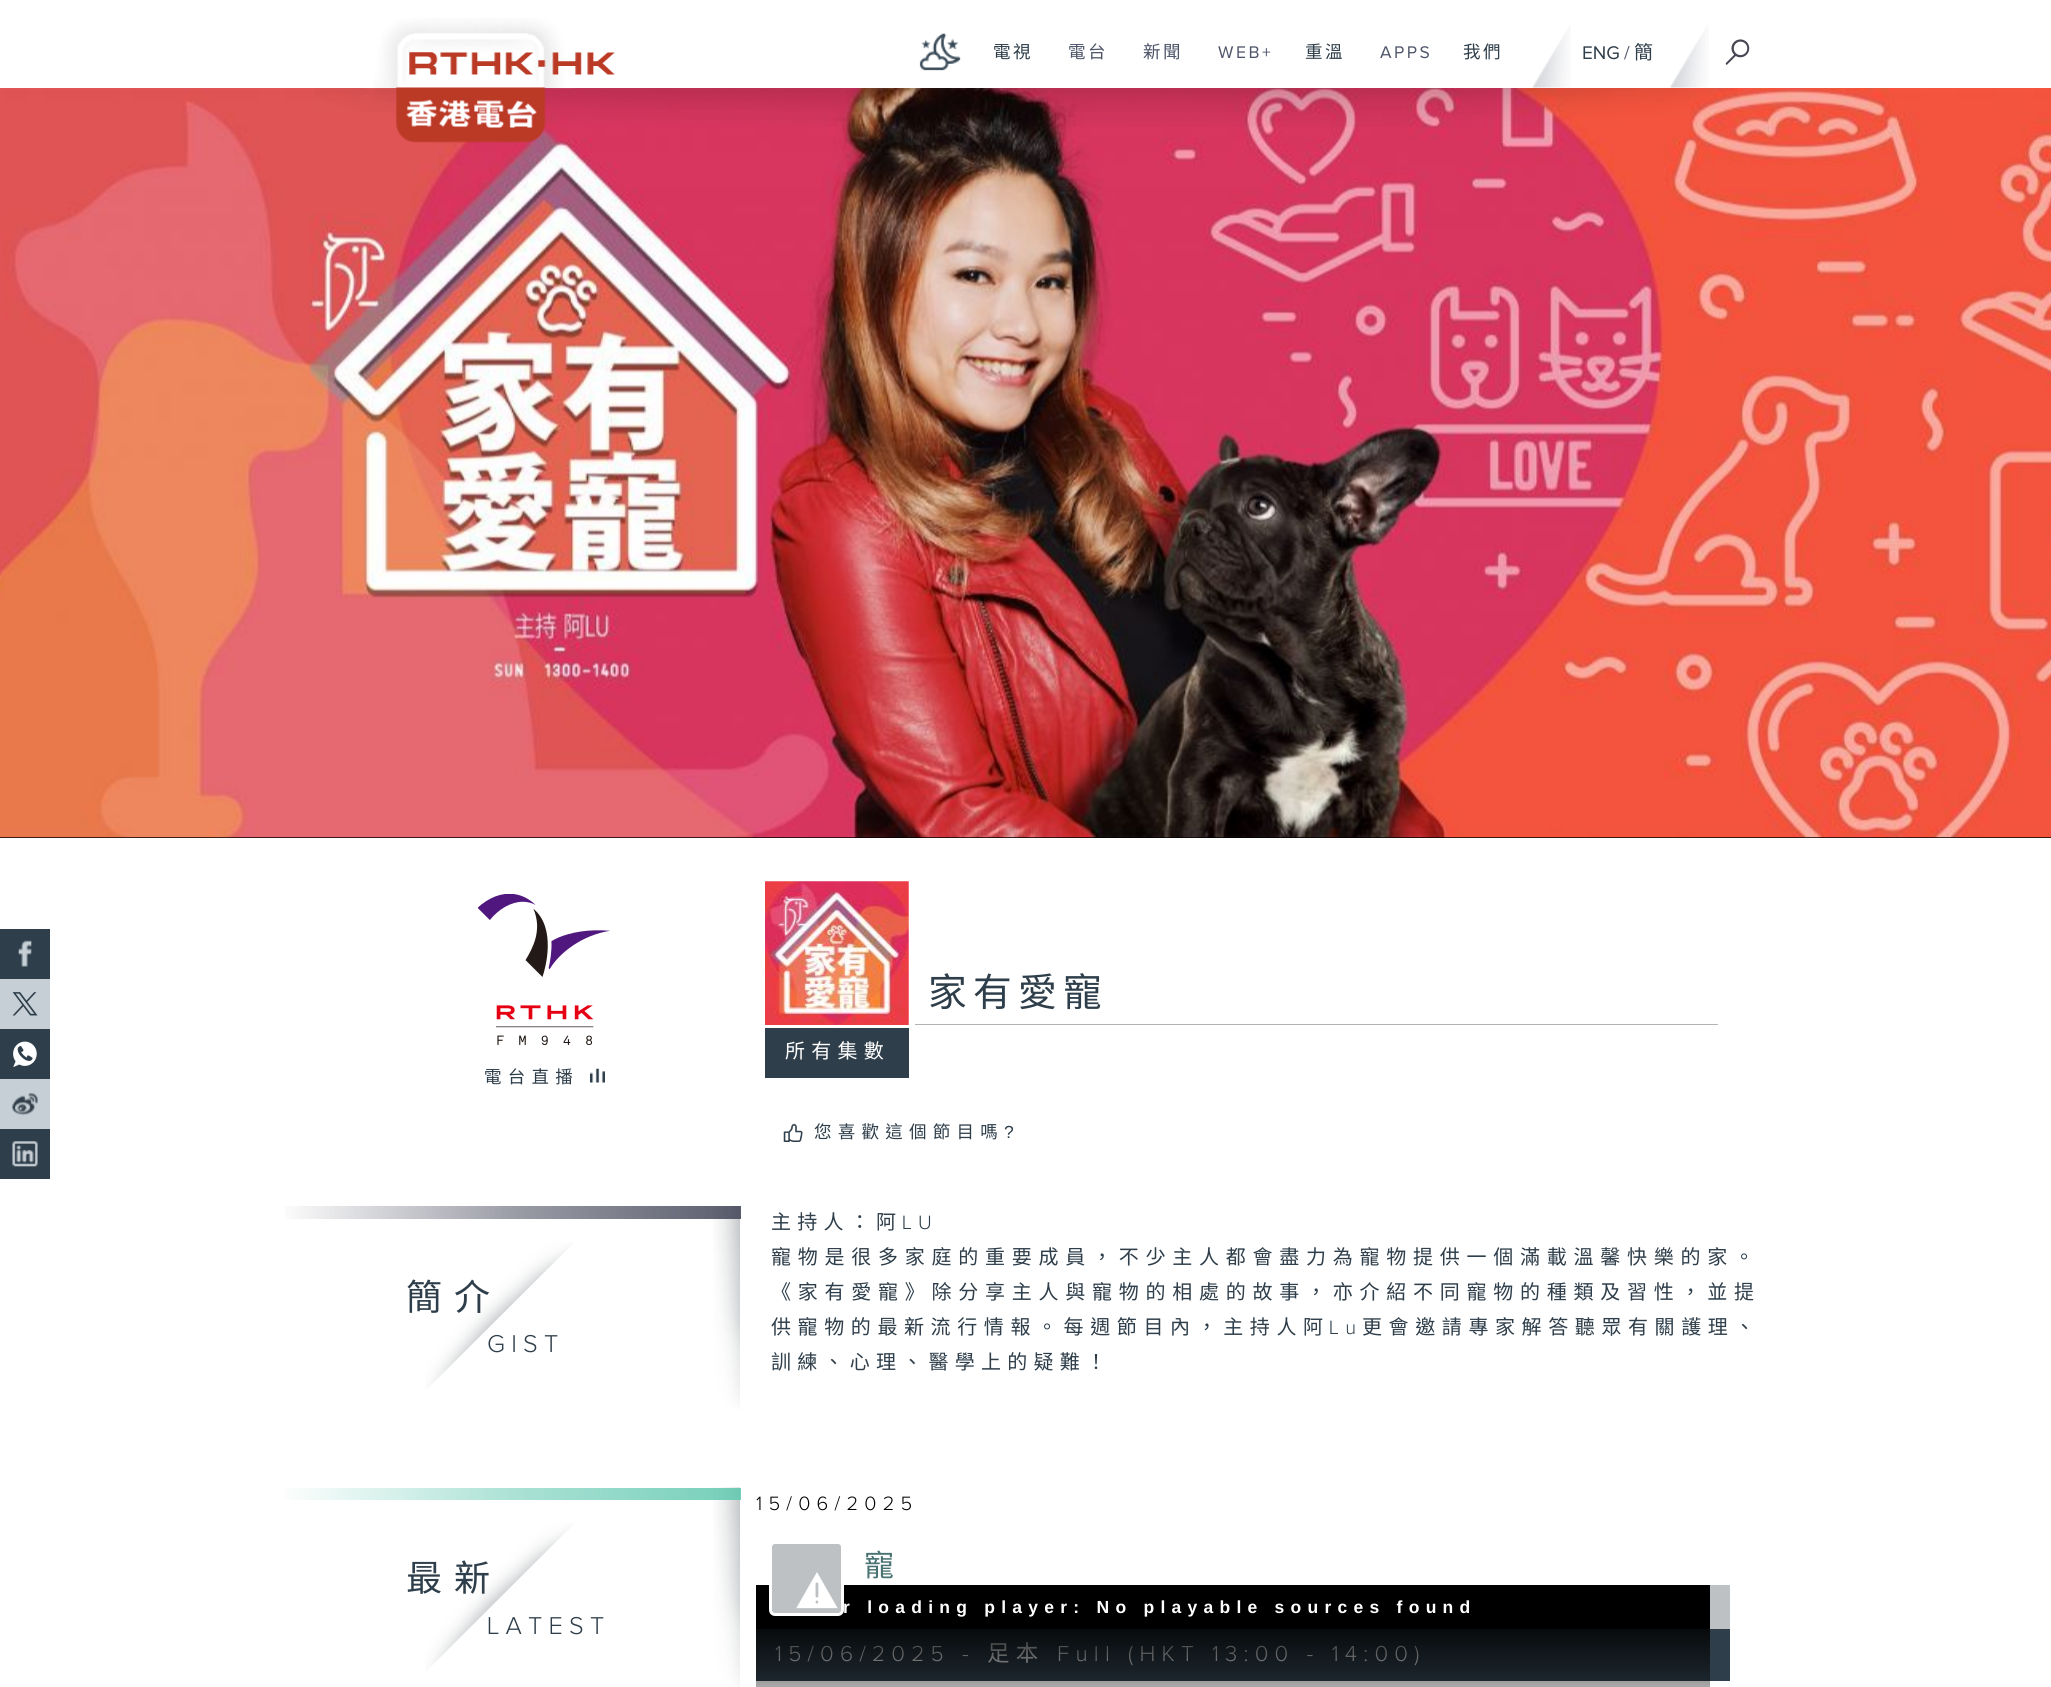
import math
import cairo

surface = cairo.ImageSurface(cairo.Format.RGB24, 2051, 1687)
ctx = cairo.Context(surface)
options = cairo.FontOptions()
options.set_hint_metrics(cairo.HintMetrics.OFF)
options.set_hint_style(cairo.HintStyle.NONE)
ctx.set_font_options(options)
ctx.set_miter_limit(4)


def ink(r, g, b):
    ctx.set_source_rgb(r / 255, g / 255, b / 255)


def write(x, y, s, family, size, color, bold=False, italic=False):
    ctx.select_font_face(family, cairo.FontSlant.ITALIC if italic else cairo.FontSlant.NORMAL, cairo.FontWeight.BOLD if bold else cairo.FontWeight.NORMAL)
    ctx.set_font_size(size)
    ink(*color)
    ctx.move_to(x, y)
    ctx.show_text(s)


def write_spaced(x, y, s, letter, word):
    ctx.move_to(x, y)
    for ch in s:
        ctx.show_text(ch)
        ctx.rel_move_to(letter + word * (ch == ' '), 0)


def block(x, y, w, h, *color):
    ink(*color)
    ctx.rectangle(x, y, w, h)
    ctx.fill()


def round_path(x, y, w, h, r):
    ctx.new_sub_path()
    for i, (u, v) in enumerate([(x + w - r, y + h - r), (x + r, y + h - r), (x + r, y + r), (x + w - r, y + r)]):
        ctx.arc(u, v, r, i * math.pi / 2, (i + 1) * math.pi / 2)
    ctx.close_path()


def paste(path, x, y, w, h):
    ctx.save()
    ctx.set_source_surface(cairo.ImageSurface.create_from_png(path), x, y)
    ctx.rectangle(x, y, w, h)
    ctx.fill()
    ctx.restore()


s1 = dict(family="Proxima Nova", size=19, color=(46, 62, 74))
s2 = dict(family="Proxima Nova", size=19, color=(78, 85, 105))
s3 = dict(family="Noto Sans CJK HK", size=19, color=(46, 62, 74))

ink(255, 255, 255)
ctx.paint()
block(0, 929, 50, 50, 46, 62, 74)
paste("pic1.png", 18, 940, 14, 27)
block(0, 979, 50, 50, 198, 207, 214)
paste("pic2.png", 12, 992, 26, 24)
block(0, 1029, 50, 50, 46, 62, 74)
paste("pic3.png", 13, 1041, 24, 26)
block(0, 1079, 50, 50, 198, 207, 214)
paste("pic4.png", 12, 1092, 26, 24)
block(0, 1129, 50, 50, 46, 62, 74)
paste("pic5.png", 12, 1141, 26, 26)
paste("pic6.png", 373, 18, 242, 70)
block(0, 837, 2051, 1, 0, 0, 0)
paste("pic13.png", 0, 88, 2051, 750)
paste("pic12.png", 314, 88, 1424, 39)
paste("pic7.png", 366, 88, 209, 55)
paste("pic8.png", 919, 33, 42, 38)
ctx.select_font_face("Noto Sans CJK HK")
ctx.set_font_size(17.5)
ink(46, 62, 74)
write_spaced(993, 58, "電視", 2.5, 0)
ink(78, 85, 105)
write_spaced(1068, 58, "電台", 2.5, 0)
write_spaced(1143, 58, "新聞", 2.5, 0)
ctx.select_font_face("Proxima Nova")
write_spaced(1218, 58, "WEB+", 2.5, 0)
ctx.select_font_face("Noto Sans CJK HK")
ink(46, 62, 74)
write_spaced(1305, 58, "重溫", 2.5, 0)
ctx.select_font_face("Proxima Nova")
ink(78, 85, 105)
write_spaced(1380, 58, "APPS", 2.5, 0)
ctx.select_font_face("Noto Sans CJK HK")
ink(46, 62, 74)
write_spaced(1463, 58, "我們", 2.5, 0)
paste("pic9.png", 1532, 25, 39, 63)
write(1582, 59, "ENG", **s1)
write(1624, 59, "/", **s2)
write(1634, 59, "簡", **s3)
paste("pic10.png", 1670, 24, 39, 64)
paste("pic11.png", 1725, 39, 25, 26)
paste("pic14.png", 478, 894, 132, 151)
ctx.set_font_size(17.5)
write_spaced(484, 1083, "電台直播", 6.25, 0)
paste("pic15.png", 590, 1068, 15, 15)
block(915, 1024, 803, 1, 179, 179, 179)
ctx.set_font_size(38.75)
ink(46, 62, 74)
write_spaced(928, 1006, "家有愛寵", 6.25, 0)
paste("pic16.png", 765, 881, 144, 144)
block(765, 1028, 144, 50, 46, 62, 74)
ctx.set_font_size(20)
ink(255, 255, 255)
write_spaced(785, 1058, "所有集數", 6.25, 0)
paste("pic17.png", 783, 1123, 20, 19)
ctx.set_font_size(17.5)
ink(46, 62, 74)
write_spaced(814, 1138, "您喜歡這個節目嗎", 6.25, 0)
ctx.select_font_face("Liberation Sans")
write_spaced(1004, 1138, "?", 6.25, 0)
paste("pic18.png", 713, 1206, 27, 203)
gradient = cairo.LinearGradient(276, 1213, 741, 1213)
gradient.add_color_stop_rgba(0, 0.275, 0.286, 0.357, 0)
gradient.add_color_stop_rgba(0.51, 0.275, 0.286, 0.357, 0.54)
gradient.add_color_stop_rgba(0.52, 0.275, 0.286, 0.357, 0.55)
gradient.add_color_stop_rgba(1, 0.275, 0.286, 0.357, 0.89)
ctx.set_source(gradient)
ctx.rectangle(285, 1206, 456, 13)
ctx.fill()
ctx.select_font_face("Noto Sans CJK HK")
ctx.set_font_size(36)
ink(46, 62, 74)
write_spaced(406, 1310, "簡介", 12, 0)
ctx.select_font_face("Proxima Nova Light")
ctx.set_font_size(25.25)
write_spaced(487, 1352, "GIST", 6.25, 0)
paste("pic19.png", 425, 1242, 149, 148)
ctx.select_font_face("Noto Sans CJK HK")
ctx.set_font_size(20)
write_spaced(771, 1229, "主持人：阿", 6.25, 0)
ctx.select_font_face("Proxima Nova Light")
write_spaced(902, 1229, "LU", 6.25, 0)
ctx.select_font_face("Noto Sans CJK HK")
write_spaced(771, 1264, "寵物是很多家庭的重要成員，不少主人都會盡力為寵物提供一個滿載溫馨快樂的家。", 6.75, 0)
write_spaced(771, 1299, "《家有愛寵》除分享主人與寵物的相處的故事，亦介紹不同寵物的種類及習性，並提", 6.75, 0)
write_spaced(771, 1334, "供寵物的最新流行情報。每週節目內，主持人阿", 6.6, 0)
ctx.select_font_face("Proxima Nova Light")
write_spaced(1329, 1334, "Lu", 6.6, 0)
ctx.select_font_face("Noto Sans CJK HK")
write_spaced(1362, 1334, "更會邀請專家解答聽眾有關護理、", 6.6, 0)
write_spaced(771, 1369, "訓練、心理、醫學上的疑難！", 6.25, 0)
paste("pic20.png", 713, 1487, 27, 200)
gradient = cairo.LinearGradient(276, 1494, 741, 1494)
gradient.add_color_stop_rgba(0, 0.392, 0.788, 0.694, 0)
gradient.add_color_stop_rgba(0.51, 0.392, 0.788, 0.694, 0.54)
gradient.add_color_stop_rgba(0.52, 0.392, 0.788, 0.694, 0.55)
gradient.add_color_stop_rgba(1, 0.392, 0.788, 0.694, 0.89)
ctx.set_source(gradient)
ctx.rectangle(285, 1488, 456, 12)
ctx.fill()
ctx.set_font_size(36)
ink(46, 62, 74)
write_spaced(406, 1591, "最新", 12, 0)
ctx.select_font_face("Proxima Nova Light")
ctx.set_font_size(25.25)
write_spaced(487, 1634, "LATEST", 6.25, 0)
paste("pic21.png", 425, 1523, 149, 149)
ctx.set_font_size(20)
ink(0, 0, 0)
write_spaced(756, 1510, "15/06/2025", 6.25, 0)
ctx.select_font_face("Noto Sans CJK HK")
ctx.set_font_size(30)
ink(73, 115, 114)
write_spaced(864, 1576, "寵", 6.25, 0)
block(1710, 1585, 20, 44, 190, 193, 195)
block(756, 1611, 954, 18, 0, 0, 0)
block(756, 1629, 974, 52, 46, 62, 74)
ctx.select_font_face("Proxima Nova Light")
ctx.set_font_size(22.5)
ink(255, 255, 255)
write_spaced(775, 1661, "15/06/2025 -", 6.25, 0)
ctx.select_font_face("Noto Sans CJK HK")
write_spaced(987, 1661, "足本", 6.25, 0)
ctx.select_font_face("Proxima Nova Light")
write_spaced(1057, 1661, "Full (HKT 13:00 - 14:00)", 6.25, 0)
gradient = cairo.LinearGradient(1233, 1585, 1233, 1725)
gradient.add_color_stop_rgba(0, 0, 0, 0, 1)
gradient.add_color_stop_rgba(0.18, 0, 0, 0, 1)
gradient.add_color_stop_rgba(1, 0, 0, 0, 0)
ctx.set_source(gradient)
ctx.rectangle(756, 1585, 954, 102)
ctx.fill()
ink(190, 193, 195)
round_path(770.5, 1542.5, 72, 72, 4.5)
ctx.fill_preserve()
ink(255, 255, 255)
ctx.set_line_width(3)
ctx.stroke()
paste("pic22.png", 796, 1572, 42, 37)
ctx.select_font_face("Liberation Sans", cairo.FontSlant.NORMAL, cairo.FontWeight.BOLD)
ctx.set_font_size(17.5)
write_spaced(843, 1613, "r loading player: No playable sources found", 6.25, 0)
surface.write_to_png("screenshot.png")
